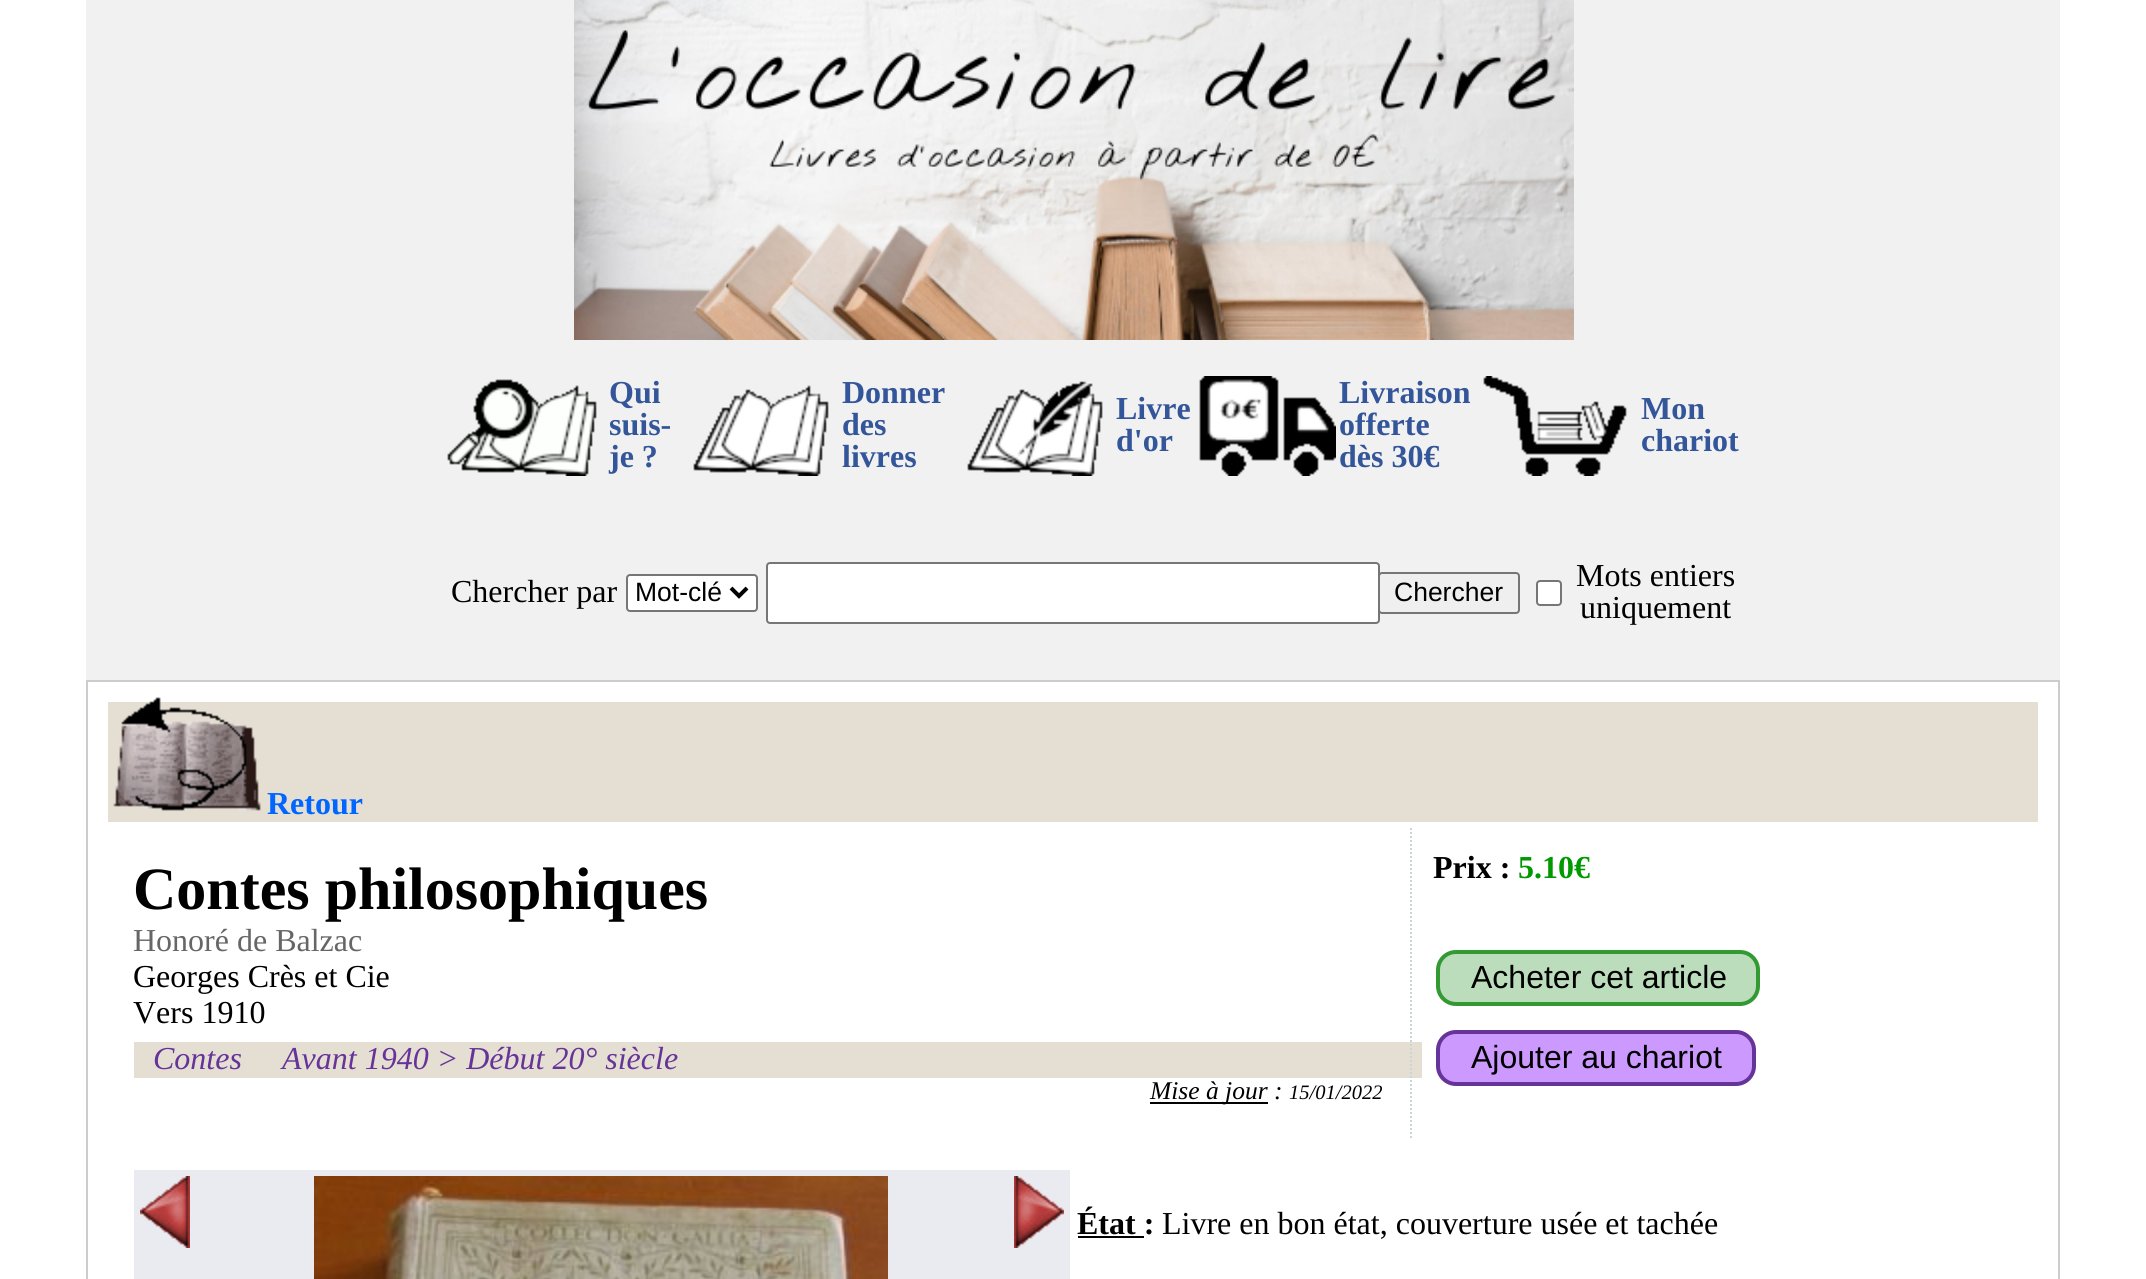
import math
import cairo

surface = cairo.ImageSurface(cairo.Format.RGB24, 2146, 1279)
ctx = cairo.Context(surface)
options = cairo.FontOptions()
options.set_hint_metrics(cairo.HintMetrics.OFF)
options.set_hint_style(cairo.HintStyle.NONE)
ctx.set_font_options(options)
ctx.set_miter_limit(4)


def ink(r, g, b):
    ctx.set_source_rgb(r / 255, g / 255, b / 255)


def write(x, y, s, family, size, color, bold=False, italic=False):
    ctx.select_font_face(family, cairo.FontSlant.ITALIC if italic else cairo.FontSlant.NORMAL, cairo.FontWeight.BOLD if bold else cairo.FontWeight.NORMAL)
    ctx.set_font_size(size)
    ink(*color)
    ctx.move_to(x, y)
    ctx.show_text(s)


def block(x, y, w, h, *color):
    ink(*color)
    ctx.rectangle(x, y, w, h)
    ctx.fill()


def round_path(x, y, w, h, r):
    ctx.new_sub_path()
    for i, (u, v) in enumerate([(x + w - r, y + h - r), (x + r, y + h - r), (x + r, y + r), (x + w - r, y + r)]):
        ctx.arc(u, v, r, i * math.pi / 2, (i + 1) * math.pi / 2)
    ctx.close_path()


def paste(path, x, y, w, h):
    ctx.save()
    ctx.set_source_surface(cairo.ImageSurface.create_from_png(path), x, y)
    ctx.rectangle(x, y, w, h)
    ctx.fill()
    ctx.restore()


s1 = dict(family="Liberation Serif", size=32, color=(51, 85, 153), bold=True)
s2 = dict(family="Liberation Serif", size=32, color=(0, 0, 0))
s3 = dict(family="Liberation Sans", size=26.5, color=(0, 0, 0))
s4 = dict(family="Liberation Serif", size=32, color=(0, 102, 255), bold=True)
s5 = dict(family="Liberation Serif", size=60, color=(0, 0, 0), bold=True)
s6 = dict(family="Liberation Serif", size=32, color=(102, 102, 102))
s7 = dict(family="Liberation Serif", size=32, color=(102, 51, 153), italic=True)
s8 = dict(family="Liberation Serif", size=25.5, color=(0, 0, 0), italic=True)
s9 = dict(family="Liberation Serif", size=20.5, color=(0, 0, 0), italic=True)
s10 = dict(family="Liberation Serif", size=32, color=(0, 0, 0), bold=True)
s11 = dict(family="Liberation Serif", size=32, color=(0, 153, 0), bold=True)
s12 = dict(family="Liberation Sans", size=32, color=(0, 0, 0))

ink(255, 255, 255)
ctx.paint()
block(86, 0, 1974, 680, 241, 241, 241)
paste("pic1.png", 574, 0, 1000, 340)
paste("pic2.png", 447, 379, 150, 97)
write(609, 403, "Qui", **s1)
write(609, 435, "suis-", **s1)
write(609, 467, "je ?", **s1)
paste("pic3.png", 693, 385, 136, 91)
write(842, 403, "Donner", **s1)
write(842, 435, "des", **s1)
write(842, 467, "livres", **s1)
paste("pic4.png", 967, 381, 136, 95)
write(1116, 419, "Livre", **s1)
write(1116, 451, "d'or", **s1)
paste("pic5.png", 1199, 376, 137, 100)
write(1339, 403, "Livraison", **s1)
write(1339, 435, "offerte", **s1)
write(1339, 467, "dès 30€", **s1)
paste("pic6.png", 1483, 376, 144, 100)
write(1641, 419, "Mon", **s1)
write(1641, 451, "chariot", **s1)
write(451, 602, "Chercher par", **s2)
ink(255, 255, 255)
round_path(627, 575, 130, 36, 3)
ctx.fill_preserve()
ink(118, 118, 118)
ctx.stroke()
ctx.new_path()
ctx.move_to(731, 588)
ctx.line_to(739, 596)
ctx.line_to(747, 588)
ink(0, 0, 0)
ctx.set_line_width(4)
ctx.stroke()
write(635, 601, "Mot-clé", **s3)
ink(255, 255, 255)
round_path(767, 563, 612, 60, 3)
ctx.fill_preserve()
ink(118, 118, 118)
ctx.set_line_width(2)
ctx.stroke()
ink(239, 239, 239)
round_path(1379, 573, 140, 40, 3)
ctx.fill_preserve()
ink(118, 118, 118)
ctx.stroke()
write(1394, 601, "Chercher", **s3)
ink(255, 255, 255)
round_path(1537, 581, 24, 24, 3)
ctx.fill_preserve()
ink(118, 118, 118)
ctx.stroke()
write(1576, 586, "Mots entiers", **s2)
write(1580, 618, "uniquement", **s2)
ctx.rectangle(87, 681, 1972, 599)
ink(204, 204, 204)
ctx.stroke()
block(108, 702, 1930, 120, 229, 222, 210)
paste("pic7.png", 113, 697, 148, 114)
write(267, 814, "Retour", **s4)
write(133, 909, "Contes philosophiques", **s5)
write(133, 951, "Honoré de Balzac", **s6)
write(133, 987, "Georges Crès et Cie", **s2)
write(133, 1023, "Vers 1910", **s2)
block(134, 1042, 1288, 36, 229, 222, 210)
write(153, 1069, "Contes", **s7)
write(282, 1069, "Avant 1940 > Début 20° siècle", **s7)
block(1150, 1102, 118, 2, 0, 0, 0)
write(1150, 1099, "Mise à jour :", **s8)
write(1289, 1099, "15/01/2022", **s9)
ctx.new_path()
ctx.move_to(1411, 828)
ctx.line_to(1411, 1138)
ink(201, 212, 215)
ctx.set_dash([2, 2])
ctx.stroke()
write(1433, 878, "Prix :", **s10)
write(1518, 878, "5.10€", **s11)
ink(187, 221, 187)
round_path(1438, 952, 320, 52, 18)
ctx.fill_preserve()
ink(51, 153, 51)
ctx.set_line_width(4)
ctx.set_dash([])
ctx.stroke()
write(1471, 988, "Acheter cet article", **s12)
ink(204, 153, 255)
round_path(1438, 1032, 316, 52, 18)
ctx.fill_preserve()
ink(102, 51, 153)
ctx.stroke()
write(1471, 1068, "Ajouter au chariot", **s12)
block(134, 1170, 936, 109, 234, 235, 240)
paste("pic8.png", 140, 1176, 50, 72)
paste("pic9.png", 314, 1176, 574, 103)
paste("pic10.png", 1014, 1176, 50, 72)
write(1077, 1234, "État :", **s10)
block(1078, 1236, 66, 2, 0, 0, 0)
write(1162, 1234, "Livre en bon état, couverture usée et tachée", **s2)
surface.write_to_png("screenshot.png")
